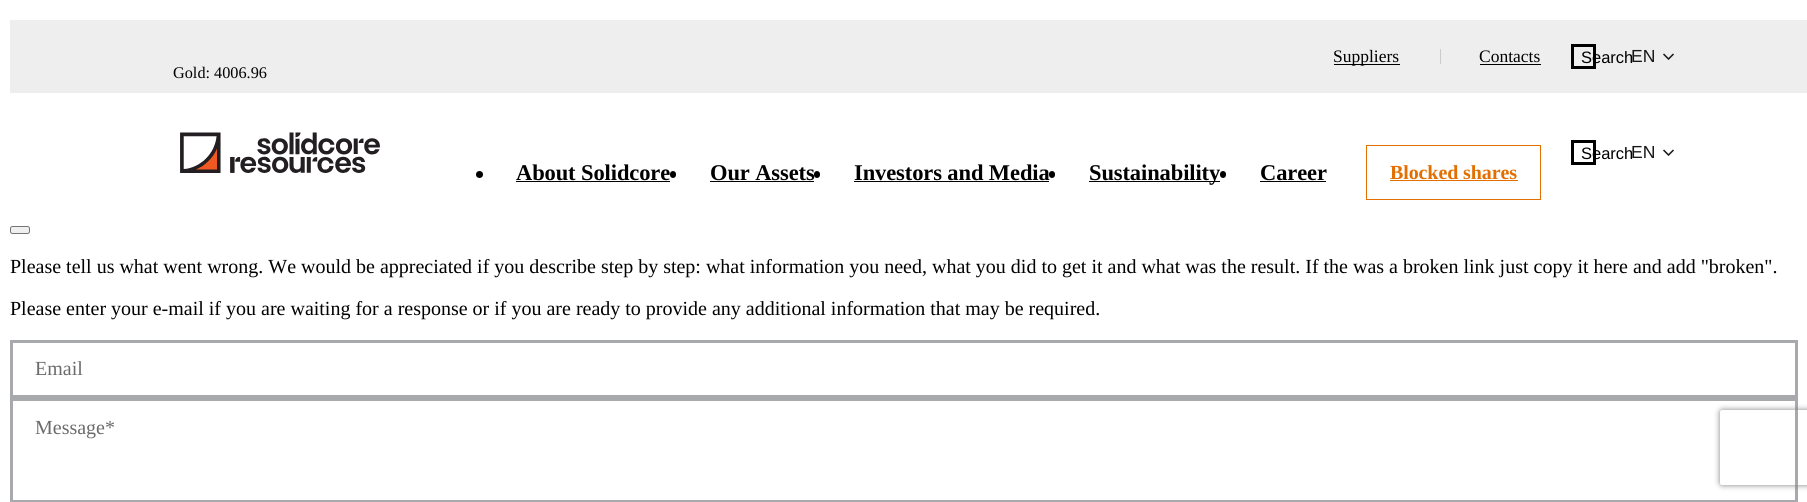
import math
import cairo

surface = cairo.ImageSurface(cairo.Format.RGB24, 1807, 502)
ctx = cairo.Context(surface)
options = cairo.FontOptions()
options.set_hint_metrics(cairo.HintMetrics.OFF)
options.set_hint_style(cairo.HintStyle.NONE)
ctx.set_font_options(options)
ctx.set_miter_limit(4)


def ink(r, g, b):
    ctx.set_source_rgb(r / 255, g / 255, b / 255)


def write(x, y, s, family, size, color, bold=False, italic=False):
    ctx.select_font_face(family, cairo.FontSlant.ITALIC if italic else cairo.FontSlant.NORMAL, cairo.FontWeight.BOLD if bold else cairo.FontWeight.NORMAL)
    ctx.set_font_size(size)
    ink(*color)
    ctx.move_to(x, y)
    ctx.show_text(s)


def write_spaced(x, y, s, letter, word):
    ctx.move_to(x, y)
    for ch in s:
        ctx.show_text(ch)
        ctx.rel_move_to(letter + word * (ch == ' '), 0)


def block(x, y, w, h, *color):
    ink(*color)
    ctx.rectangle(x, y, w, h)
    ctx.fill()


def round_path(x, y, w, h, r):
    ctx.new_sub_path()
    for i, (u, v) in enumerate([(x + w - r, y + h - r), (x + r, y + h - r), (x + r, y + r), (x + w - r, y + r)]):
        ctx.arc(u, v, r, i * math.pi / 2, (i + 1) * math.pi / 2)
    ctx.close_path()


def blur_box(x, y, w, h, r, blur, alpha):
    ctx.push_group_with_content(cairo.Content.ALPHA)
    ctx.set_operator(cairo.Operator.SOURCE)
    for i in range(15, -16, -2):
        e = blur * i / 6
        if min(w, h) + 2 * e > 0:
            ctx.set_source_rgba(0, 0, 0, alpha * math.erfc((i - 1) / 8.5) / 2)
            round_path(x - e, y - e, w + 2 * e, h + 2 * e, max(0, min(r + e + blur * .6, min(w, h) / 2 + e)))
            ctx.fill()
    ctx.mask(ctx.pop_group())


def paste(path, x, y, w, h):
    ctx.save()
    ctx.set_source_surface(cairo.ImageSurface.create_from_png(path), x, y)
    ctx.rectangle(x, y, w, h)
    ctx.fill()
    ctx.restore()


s1 = dict(family="Liberation Serif", size=17.5, color=(0, 0, 0))
s2 = dict(family="Liberation Sans", size=16.5, color=(0, 0, 0))
s3 = dict(family="Liberation Sans", size=17.5, color=(23, 22, 23))
s4 = dict(family="Liberation Serif", size=16.25, color=(0, 0, 0))
s5 = dict(family="Liberation Serif", size=20, color=(0, 0, 0))
s6 = dict(family="Liberation Serif", size=20, color=(107, 107, 107))

ink(255, 255, 255)
ctx.paint()
block(10, 20, 1797, 73, 238, 238, 238)
block(1334, 64, 66, 1, 0, 0, 0)
write(1333, 62, "Suppliers", **s1)
block(1440, 49, 1, 15, 203, 203, 205)
write(1479, 62, "Contacts", **s1)
block(1480, 64, 61, 1, 0, 0, 0)
ctx.rectangle(1572.5, 45.5, 22, 22)
ctx.set_line_width(3)
ctx.stroke()
write(1581, 63, "Search", **s2)
write(1631, 62, "EN", **s3)
ctx.new_path()
ctx.move_to(1663.5, 54)
ctx.line_to(1668.5, 59)
ctx.line_to(1673.5, 54)
ctx.set_line_width(1.5)
ctx.stroke()
write(173, 78, "Gold: 4006.96", **s4)
paste("pic1.png", 180, 132, 200, 41)
ctx.rectangle(1572.5, 141.5, 22, 22)
ctx.set_line_width(3)
ctx.stroke()
write(1581, 159, "Search", **s2)
write(1631, 158, "EN", **s3)
ctx.new_path()
ctx.move_to(1663.5, 150)
ctx.line_to(1668.5, 155)
ctx.line_to(1673.5, 150)
ctx.set_line_width(1.5)
ctx.stroke()
ink(0, 0, 0)
ctx.arc(479.5, 174.5, 3.5, 0, 2 * math.pi)
ctx.fill()
ctx.select_font_face("Liberation Serif", cairo.FontSlant.NORMAL, cairo.FontWeight.BOLD)
ctx.set_font_size(22.5)
write_spaced(516, 180, "About Solidcore", -0.1, 0)
block(516, 181, 154, 1, 0, 0, 0)
round_path(670, 171, 6, 7, 3)
ctx.fill()
write_spaced(710, 180, "Our Assets", -0.1, 0)
block(710, 181, 104, 1, 0, 0, 0)
round_path(814, 171, 6, 7, 3)
ctx.fill()
write_spaced(854, 180, "Investors and Media", -0.1, 0)
block(854, 181, 195, 1, 0, 0, 0)
round_path(1049, 171, 6, 7, 3)
ctx.fill()
block(1089, 181, 131, 1, 0, 0, 0)
write_spaced(1089, 180, "Sustainability", -0.1, 0)
round_path(1220, 171, 6, 7, 3)
ctx.fill()
write_spaced(1260, 180, "Career", -0.1, 0)
block(1260, 181, 66, 1, 0, 0, 0)
ctx.rectangle(1366.5, 145.5, 174, 54)
ink(226, 111, 0)
ctx.set_line_width(1)
ctx.stroke()
ctx.set_font_size(20)
write_spaced(1390, 179, "Blocked shares", -0.1, 0)
block(1390, 180, 128, 1, 226, 111, 0)
ink(239, 239, 239)
round_path(10.5, 226.5, 19, 7, 2)
ctx.fill_preserve()
ink(118, 118, 118)
ctx.stroke()
write(10, 273, "Please tell us what went wrong. We would be appreciated if you describe step by step: what information you need, what you did to get it and what was the result. If the was a broken link just copy it here and add \"broken\".", **s5)
write(10, 315, "Please enter your e-mail if you are waiting for a response or if you are ready to provide any additional information that may be required.", **s5)
ctx.rectangle(11.5, 341.5, 1785, 55)
ink(167, 169, 172)
ctx.set_line_width(3)
ctx.stroke()
write(35, 375, "Email", **s6)
ctx.rectangle(11.5, 399.5, 1785, 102)
ink(167, 169, 172)
ctx.stroke()
write(35, 434, "Message*", **s6)
ctx.save()
ctx.set_fill_rule(cairo.FillRule.EVEN_ODD)
ctx.new_path()
ctx.move_to(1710, 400)
ctx.line_to(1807, 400)
ctx.line_to(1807, 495)
ctx.line_to(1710, 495)
ctx.close_path()
ctx.move_to(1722.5, 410)
ctx.line_to(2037.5, 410)
ctx.curve_to(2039, 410, 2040, 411, 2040, 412.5)
ctx.line_to(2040, 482.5)
ctx.curve_to(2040, 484, 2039, 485, 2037.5, 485)
ctx.line_to(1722.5, 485)
ctx.curve_to(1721, 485, 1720, 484, 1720, 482.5)
ctx.line_to(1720, 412.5)
ctx.curve_to(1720, 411, 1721, 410, 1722.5, 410)
ctx.close_path()
ctx.clip()
ink(128, 128, 128)
blur_box(1720, 410, 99, 75, 2.5, 3, 1)
ctx.restore()
surface.write_to_png("screenshot.png")
